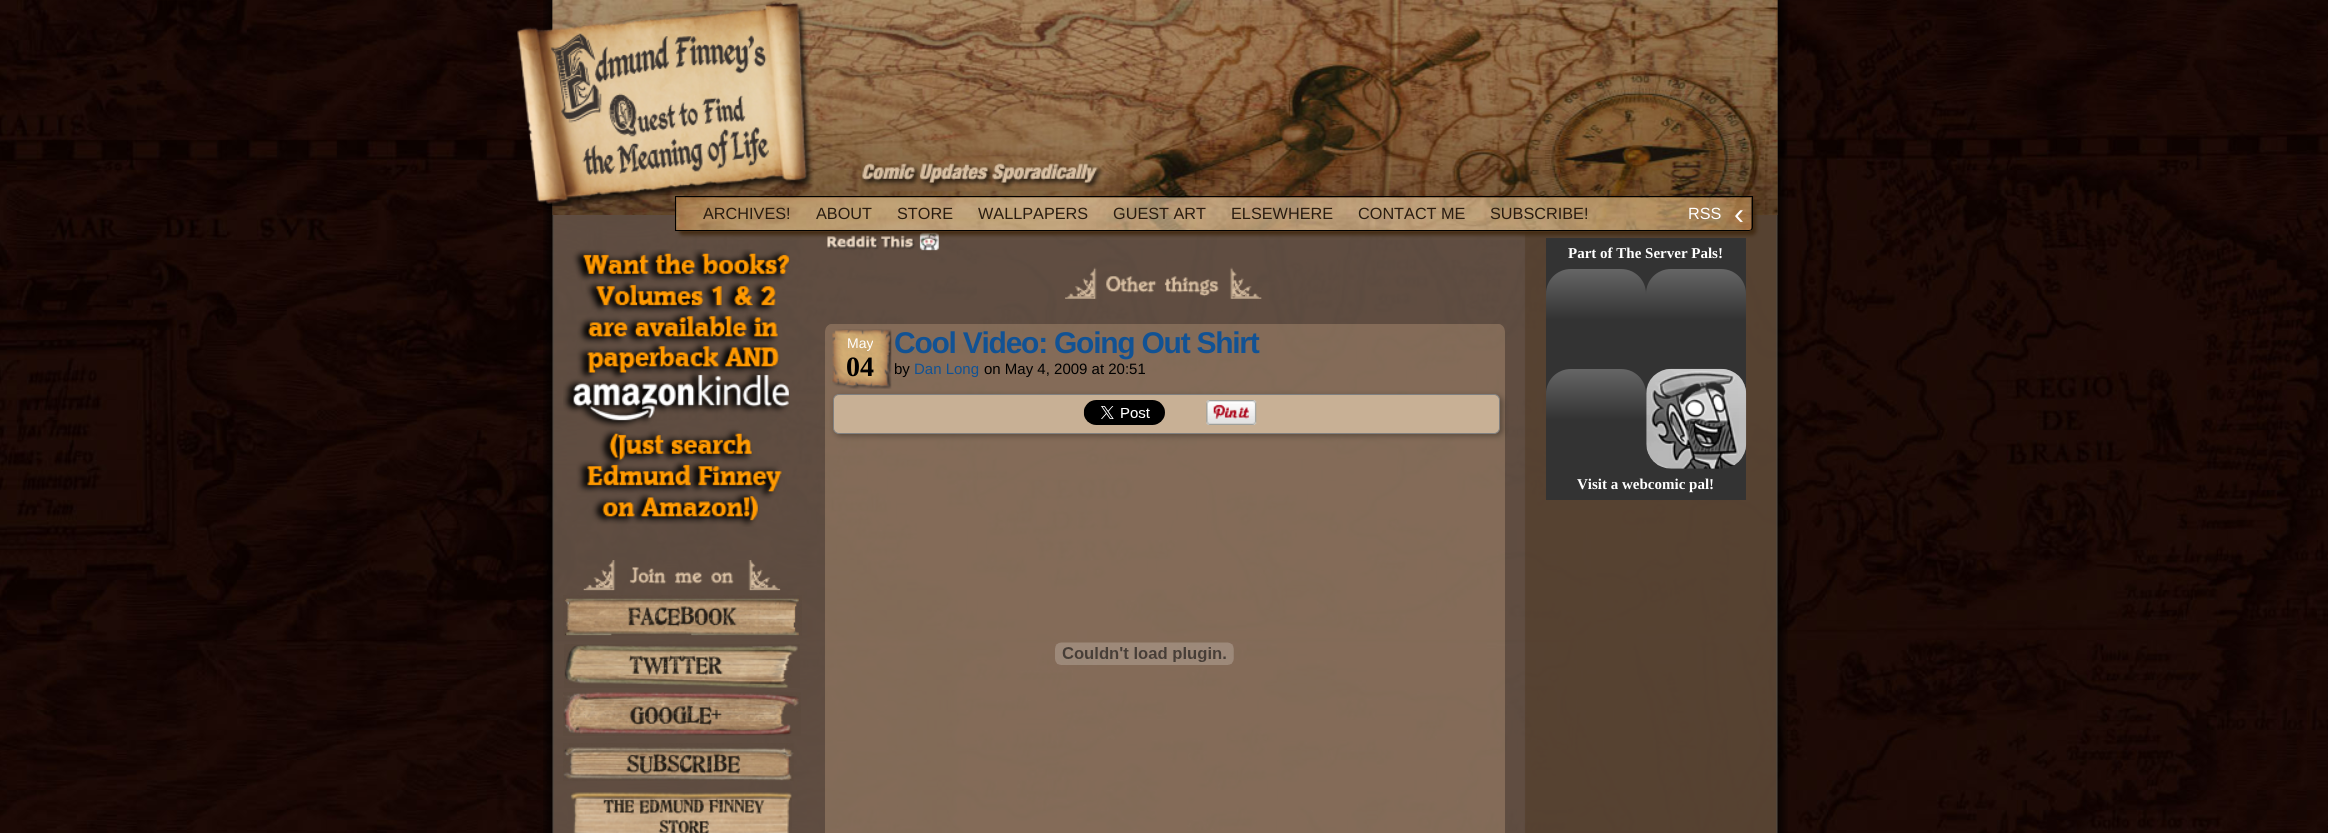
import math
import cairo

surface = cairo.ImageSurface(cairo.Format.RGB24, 2328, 833)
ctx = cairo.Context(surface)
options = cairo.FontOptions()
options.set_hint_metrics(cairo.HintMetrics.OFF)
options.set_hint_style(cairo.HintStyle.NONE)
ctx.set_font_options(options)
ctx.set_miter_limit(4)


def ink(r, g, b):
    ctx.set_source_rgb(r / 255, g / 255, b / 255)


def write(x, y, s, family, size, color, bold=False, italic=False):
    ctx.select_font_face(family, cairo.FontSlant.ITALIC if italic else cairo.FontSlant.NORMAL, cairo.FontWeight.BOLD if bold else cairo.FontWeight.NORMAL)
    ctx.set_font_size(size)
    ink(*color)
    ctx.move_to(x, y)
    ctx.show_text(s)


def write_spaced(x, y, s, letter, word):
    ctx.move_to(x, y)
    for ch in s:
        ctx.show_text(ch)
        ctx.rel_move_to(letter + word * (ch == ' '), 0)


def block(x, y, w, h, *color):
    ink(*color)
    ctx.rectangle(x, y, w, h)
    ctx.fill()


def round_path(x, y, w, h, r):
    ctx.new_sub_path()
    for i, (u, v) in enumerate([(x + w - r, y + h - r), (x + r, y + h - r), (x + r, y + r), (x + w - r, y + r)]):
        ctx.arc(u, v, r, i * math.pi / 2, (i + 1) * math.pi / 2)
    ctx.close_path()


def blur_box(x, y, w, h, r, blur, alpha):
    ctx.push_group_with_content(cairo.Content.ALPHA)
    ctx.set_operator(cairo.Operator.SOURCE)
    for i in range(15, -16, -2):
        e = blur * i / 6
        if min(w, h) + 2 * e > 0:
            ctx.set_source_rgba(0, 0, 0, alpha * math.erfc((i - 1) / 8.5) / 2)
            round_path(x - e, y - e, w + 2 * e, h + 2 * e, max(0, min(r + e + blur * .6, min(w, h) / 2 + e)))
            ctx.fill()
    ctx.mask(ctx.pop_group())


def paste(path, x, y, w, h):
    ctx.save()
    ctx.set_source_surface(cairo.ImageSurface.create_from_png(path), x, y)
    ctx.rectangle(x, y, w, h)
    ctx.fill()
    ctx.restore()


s1 = dict(family="Liberation Sans", size=16.25, color=(41, 28, 16))
s2 = dict(family="Liberation Sans", size=16.25, color=(255, 255, 255))
s3 = dict(family="Liberation Sans", size=30, color=(255, 255, 255))
s4 = dict(family="Liberation Sans", size=14, color=(255, 255, 255))
s5 = dict(family="Liberation Serif", size=28, color=(0, 0, 0), bold=True)
s6 = dict(family="Liberation Sans", size=15, color=(0, 0, 0))
s7 = dict(family="Liberation Sans", size=15, color=(17, 82, 148))
s8 = dict(family="Liberation Serif", size=15, color=(255, 255, 255), bold=True)

ink(255, 255, 255)
ctx.paint()
paste("pic1.png", 0, 0, 2328, 833)
paste("pic2.png", 543, 0, 1245, 833)
paste("pic3.png", 552, 0, 1226, 215)
paste("pic4.png", 517, 1, 297, 206)
paste("pic13.png", 827, 232, 112, 19)
ink(66, 43, 19)
blur_box(679, 200, 1077, 35, 4, 2, 1)
paste("pic5.png", 676, 197, 1076, 35)
ctx.new_path()
ctx.move_to(675.5, 196.5)
ctx.line_to(1752.5, 196.5)
ctx.line_to(1752.5, 227)
ctx.curve_to(1752.5, 229, 1751, 230.5, 1749, 230.5)
ctx.line_to(675.5, 230.5)
ctx.close_path()
ink(0, 0, 0)
ctx.set_line_width(1)
ctx.stroke()
write(703, 219, "ARCHIVES!", **s1)
write(816, 219, "ABOUT", **s1)
write(897, 219, "STORE", **s1)
write(978, 219, "WALLPAPERS", **s1)
write(1113, 219, "GUEST ART", **s1)
write(1231, 219, "ELSEWHERE", **s1)
write(1358, 219, "CONTACT ME", **s1)
write(1490, 219, "SUBSCRIBE!", **s1)
write(1688, 219, "RSS", **s2)
write(1734, 224, "‹", **s3)
paste("pic6.png", 563, 249, 227, 278)
paste("pic7.png", 583, 560, 198, 31)
paste("pic8.png", 563, 595, 239, 41)
paste("pic9.png", 564, 644, 236, 44)
paste("pic10.png", 563, 692, 238, 44)
paste("pic11.png", 563, 743, 231, 38)
paste("pic12.png", 570, 792, 222, 41)
paste("pic14.png", 1065, 267, 197, 32)
paste("pic15.png", 825, 324, 680, 509)
paste("pic16.png", 832, 329, 60, 60)
write(847, 348, "May", **s4)
write(846, 376, "04", **s5)
ctx.select_font_face("Liberation Sans", cairo.FontSlant.NORMAL, cairo.FontWeight.BOLD)
ctx.set_font_size(30)
ink(17, 82, 148)
write_spaced(894, 353, "Cool Video: Going Out Shirt", -1.25, 0)
write(894, 374, "by", **s6)
write(914, 374, "Dan Long", **s7)
write(984, 374, "on May 4, 2009 at 20:51", **s6)
ink(0, 0, 0)
blur_box(835, 396, 668, 40, 6, 3, 0.3)
ink(200, 176, 149)
round_path(833.5, 394.5, 666, 39, 5.5)
ctx.fill_preserve()
ink(128, 128, 128)
ctx.stroke()
paste("pic17.png", 1083, 400, 82, 25)
paste("pic18.png", 1206, 400, 51, 25)
paste("pic19.png", 1055, 642, 179, 23)
block(1546, 238, 200, 262, 51, 51, 51)
write(1568, 258, "Part of The Server Pals!", **s8)
gradient = cairo.LinearGradient(1546, 269, 1546, 319)
gradient.add_color_stop_rgba(0, 0.4, 0.4, 0.4, 1)
gradient.add_color_stop_rgba(1, 0.2, 0.2, 0.2, 1)
ctx.set_source(gradient)
ctx.new_path()
ctx.move_to(1571, 269)
ctx.line_to(1621, 269)
ctx.curve_to(1635, 269, 1646, 280, 1646, 294)
ctx.line_to(1646, 319)
ctx.line_to(1546, 319)
ctx.line_to(1546, 294)
ctx.curve_to(1546, 280, 1557, 269, 1571, 269)
ctx.close_path()
ctx.fill()
gradient = cairo.LinearGradient(1546, 369, 1546, 419)
gradient.add_color_stop_rgba(0, 0.4, 0.4, 0.4, 1)
gradient.add_color_stop_rgba(1, 0.2, 0.2, 0.2, 1)
ctx.set_source(gradient)
ctx.new_path()
ctx.move_to(1571, 369)
ctx.line_to(1621, 369)
ctx.curve_to(1635, 369, 1646, 380, 1646, 394)
ctx.line_to(1646, 419)
ctx.line_to(1546, 419)
ctx.line_to(1546, 394)
ctx.curve_to(1546, 380, 1557, 369, 1571, 369)
ctx.close_path()
ctx.fill()
gradient = cairo.LinearGradient(1646, 269, 1646, 319)
gradient.add_color_stop_rgba(0, 0.4, 0.4, 0.4, 1)
gradient.add_color_stop_rgba(1, 0.2, 0.2, 0.2, 1)
ctx.set_source(gradient)
ctx.new_path()
ctx.move_to(1671, 269)
ctx.line_to(1721, 269)
ctx.curve_to(1735, 269, 1746, 280, 1746, 294)
ctx.line_to(1746, 319)
ctx.line_to(1646, 319)
ctx.line_to(1646, 294)
ctx.curve_to(1646, 280, 1657, 269, 1671, 269)
ctx.close_path()
ctx.fill()
paste("pic20.png", 1646, 368, 101, 101)
gradient = cairo.LinearGradient(1646, 369, 1646, 419)
gradient.add_color_stop_rgba(0, 1, 1, 1, 0.25)
gradient.add_color_stop_rgba(1, 1, 1, 1, 0)
ctx.set_source(gradient)
ctx.new_path()
ctx.move_to(1671, 369)
ctx.line_to(1721, 369)
ctx.curve_to(1735, 369, 1746, 380, 1746, 394)
ctx.line_to(1746, 419)
ctx.line_to(1646, 419)
ctx.line_to(1646, 394)
ctx.curve_to(1646, 380, 1657, 369, 1671, 369)
ctx.close_path()
ctx.fill()
write(1577, 489, "Visit a webcomic pal!", **s8)
surface.write_to_png("screenshot.png")
